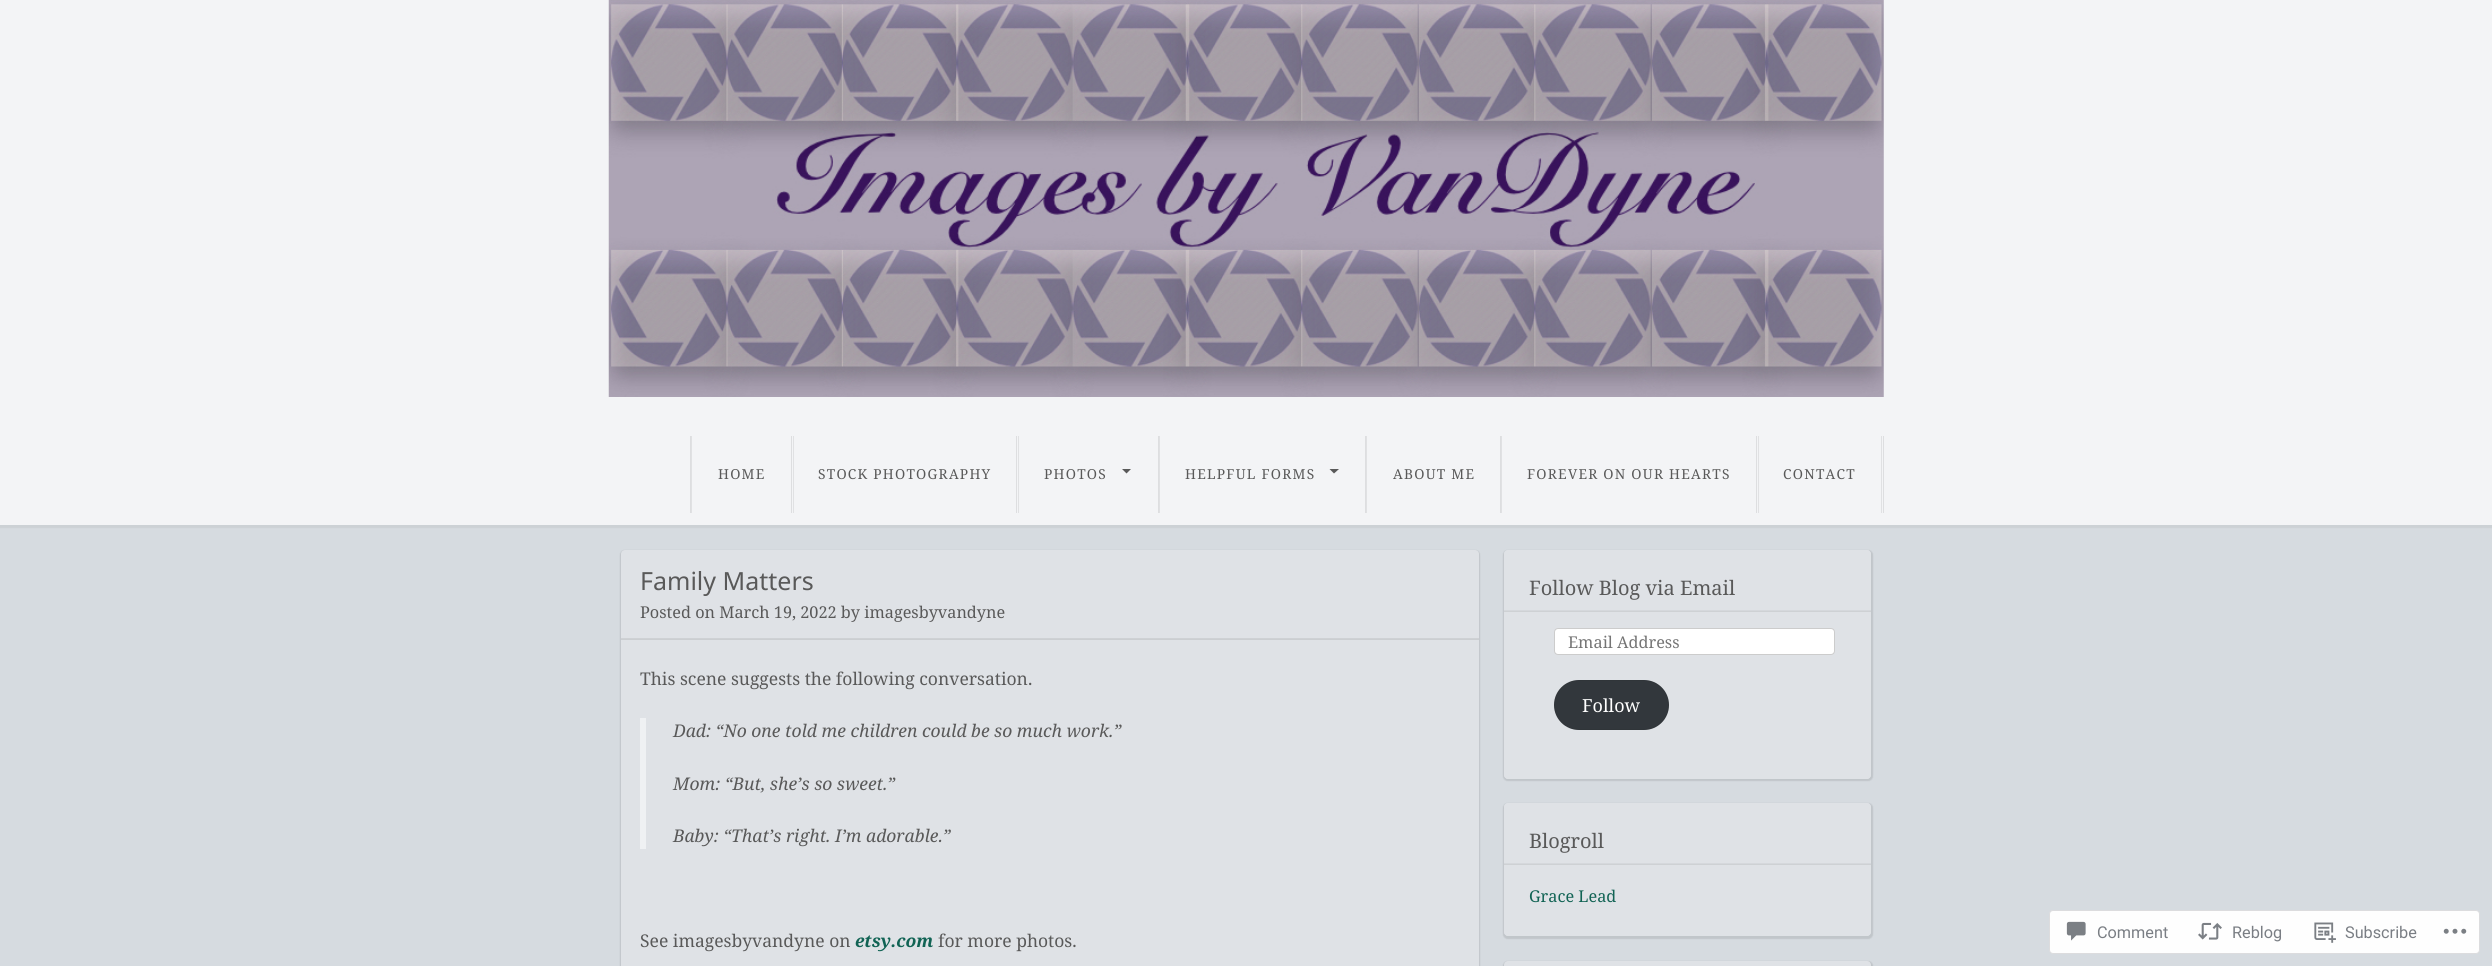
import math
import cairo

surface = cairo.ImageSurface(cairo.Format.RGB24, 2492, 966)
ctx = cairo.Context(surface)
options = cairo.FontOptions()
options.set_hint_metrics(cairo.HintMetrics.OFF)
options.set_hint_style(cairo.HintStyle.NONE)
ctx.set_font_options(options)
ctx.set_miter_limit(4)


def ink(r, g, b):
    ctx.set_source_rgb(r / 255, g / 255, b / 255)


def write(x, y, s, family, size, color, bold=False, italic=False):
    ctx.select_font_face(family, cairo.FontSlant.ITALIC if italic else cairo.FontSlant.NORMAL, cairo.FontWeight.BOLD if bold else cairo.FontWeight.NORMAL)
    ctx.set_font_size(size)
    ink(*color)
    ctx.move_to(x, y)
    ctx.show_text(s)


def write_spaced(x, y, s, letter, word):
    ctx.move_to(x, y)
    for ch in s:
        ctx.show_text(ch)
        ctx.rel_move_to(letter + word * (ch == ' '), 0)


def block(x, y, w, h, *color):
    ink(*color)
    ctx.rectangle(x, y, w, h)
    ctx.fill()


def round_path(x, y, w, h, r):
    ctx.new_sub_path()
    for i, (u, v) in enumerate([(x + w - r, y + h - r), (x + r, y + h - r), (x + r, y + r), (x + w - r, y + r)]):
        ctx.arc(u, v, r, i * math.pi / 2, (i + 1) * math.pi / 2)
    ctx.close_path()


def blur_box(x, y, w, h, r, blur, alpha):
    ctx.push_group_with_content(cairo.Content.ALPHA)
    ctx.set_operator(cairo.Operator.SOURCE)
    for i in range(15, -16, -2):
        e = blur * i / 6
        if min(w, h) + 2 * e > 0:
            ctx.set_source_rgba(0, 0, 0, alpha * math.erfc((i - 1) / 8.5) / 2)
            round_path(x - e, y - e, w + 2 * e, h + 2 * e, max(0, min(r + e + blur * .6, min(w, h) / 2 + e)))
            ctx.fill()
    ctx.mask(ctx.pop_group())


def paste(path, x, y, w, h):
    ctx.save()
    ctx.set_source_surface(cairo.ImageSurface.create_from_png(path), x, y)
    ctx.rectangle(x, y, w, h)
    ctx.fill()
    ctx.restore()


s1 = dict(family="Noto Sans", size=25, color=(89, 89, 89))
s2 = dict(family="Noto Serif", size=16.25, color=(89, 89, 89))
s3 = dict(family="Noto Serif", size=17.5, color=(89, 89, 89))
s4 = dict(family="Noto Serif", size=17.5, color=(89, 89, 89), italic=True)
s5 = dict(family="Noto Serif", size=17.5, color=(17, 99, 84), bold=True, italic=True)
s6 = dict(family="Noto Serif", size=20, color=(89, 89, 89))
s7 = dict(family="Noto Serif", size=16.25, color=(117, 117, 117))
s8 = dict(family="Noto Serif", size=18, color=(255, 255, 255))
s9 = dict(family="Noto Serif", size=16.25, color=(17, 99, 84))
s10 = dict(family="Roboto", size=16.25, color=(122, 126, 132))

ink(214, 219, 224)
ctx.paint()
ink(0, 0, 0)
blur_box(-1, -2, 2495, 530, 0, 0.5, 0.05)
block(0, 0, 2492, 525, 243, 244, 246)
paste("pic1.png", 608, 0, 1276, 397)
block(1883, 436, 1, 77, 221, 222, 224)
block(690, 436, 1, 77, 221, 222, 224)
block(691, 436, 1, 77, 224, 225, 227)
ctx.select_font_face("Noto Serif")
ctx.set_font_size(13.75)
ink(89, 89, 89)
write_spaced(718, 479, "HOME", 1.25, 0)
block(791, 436, 1, 77, 221, 222, 224)
block(793, 436, 1, 77, 224, 225, 227)
ink(89, 89, 89)
write_spaced(818, 479, "STOCK PHOTOGRAPHY", 1.25, 0)
block(1016, 436, 1, 77, 221, 222, 224)
block(1018, 436, 1, 77, 224, 225, 227)
ink(89, 89, 89)
write_spaced(1044, 479, "PHOTOS", 1.25, 0)
ctx.new_path()
ctx.move_to(1122, 469)
ctx.line_to(1126.5, 473.5)
ctx.line_to(1131, 469)
ctx.close_path()
ctx.fill()
block(1158, 436, 1, 77, 221, 222, 224)
block(1159, 436, 1, 77, 224, 225, 227)
ink(89, 89, 89)
write_spaced(1185, 479, "HELPFUL FORMS", 1.25, 0)
ctx.new_path()
ctx.move_to(1329.5, 469)
ctx.line_to(1334, 473.5)
ctx.line_to(1339, 469)
ctx.close_path()
ctx.fill()
block(1365, 436, 1, 77, 221, 222, 224)
block(1366, 436, 1, 77, 224, 225, 227)
ink(89, 89, 89)
write_spaced(1393, 479, "ABOUT ME", 1.25, 0)
block(1500, 436, 1, 77, 221, 222, 224)
block(1501, 436, 1, 77, 224, 225, 227)
ink(89, 89, 89)
write_spaced(1527, 479, "FOREVER ON OUR HEARTS", 1.25, 0)
block(1756, 436, 1, 77, 221, 222, 224)
block(1881, 436, 1, 77, 224, 225, 227)
block(1758, 436, 1, 77, 224, 225, 227)
ink(89, 89, 89)
write_spaced(1783, 479, "CONTACT", 1.25, 0)
ink(0, 0, 0)
blur_box(620, 550, 860, 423, 5, 0.5, 0.1)
ink(223, 226, 230)
round_path(621, 550, 858, 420, 4)
ctx.fill()
block(621, 638, 858, 1, 206, 209, 212)
write(640, 590, "Family Matters", **s1)
write(640, 618, "Posted on March 19, 2022 by imagesbyvandyne", **s2)
block(621, 639, 858, 1, 203, 206, 209)
write(640, 685, "This scene suggests the following conversation.", **s3)
block(640, 718, 6, 131, 239, 241, 243)
write(673, 737, "Dad: “No one told me children could be so much work.”", **s4)
write(673, 790, "Mom: “But, she’s so sweet.”", **s4)
write(673, 842, "Baby: “That’s right. I’m adorable.”", **s4)
write(640, 947, "See imagesbyvandyne on", **s3)
write(855, 947, "etsy.com", **s5)
write(938, 947, "for more photos.", **s3)
ctx.save()
ctx.set_fill_rule(cairo.FillRule.EVEN_ODD)
ctx.new_path()
ctx.move_to(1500, 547)
ctx.line_to(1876, 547)
ctx.line_to(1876, 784)
ctx.line_to(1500, 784)
ctx.close_path()
ctx.move_to(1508, 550)
ctx.line_to(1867, 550)
ctx.curve_to(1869, 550, 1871, 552, 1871, 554)
ctx.line_to(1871, 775)
ctx.curve_to(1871, 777, 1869, 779, 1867, 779)
ctx.line_to(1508, 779)
ctx.curve_to(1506, 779, 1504, 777, 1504, 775)
ctx.line_to(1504, 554)
ctx.curve_to(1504, 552, 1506, 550, 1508, 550)
ctx.close_path()
ctx.clip()
ink(0, 0, 0)
blur_box(1503, 550, 370, 231, 5, 0.5, 0.1)
ctx.restore()
ink(223, 226, 230)
round_path(1504, 550, 367, 229, 4)
ctx.fill()
block(1504, 611, 367, 1, 206, 209, 212)
write(1529, 595, "Follow Blog via Email", **s6)
block(1504, 610, 367, 1, 213, 216, 220)
ink(255, 255, 255)
round_path(1554.5, 628.5, 280, 26, 3.5)
ctx.fill_preserve()
ink(204, 204, 204)
ctx.set_line_width(1)
ctx.stroke()
write(1568, 648, "Email Address", **s7)
ink(50, 55, 60)
round_path(1554, 680, 115, 50, 25)
ctx.fill()
round_path(1554.5, 680.5, 114, 49, 24.5)
ctx.set_source_rgba(0.133, 0.133, 0.133, 0.1)
ctx.stroke()
write(1582, 712, "Follow", **s8)
ctx.save()
ctx.set_fill_rule(cairo.FillRule.EVEN_ODD)
ctx.new_path()
ctx.move_to(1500, 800)
ctx.line_to(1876, 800)
ctx.line_to(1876, 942)
ctx.line_to(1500, 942)
ctx.close_path()
ctx.move_to(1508, 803)
ctx.line_to(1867, 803)
ctx.curve_to(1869, 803, 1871, 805, 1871, 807)
ctx.line_to(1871, 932)
ctx.curve_to(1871, 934, 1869, 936, 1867, 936)
ctx.line_to(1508, 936)
ctx.curve_to(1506, 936, 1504, 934, 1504, 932)
ctx.line_to(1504, 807)
ctx.curve_to(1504, 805, 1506, 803, 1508, 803)
ctx.close_path()
ctx.clip()
ink(0, 0, 0)
blur_box(1503, 803, 370, 136, 5, 0.5, 0.1)
ctx.restore()
ink(223, 226, 230)
round_path(1504, 803, 367, 133, 4)
ctx.fill()
block(1504, 864, 367, 1, 206, 209, 212)
write(1529, 848, "Blogroll", **s6)
block(1504, 863, 367, 1, 213, 216, 220)
write(1529, 902, "Grace Lead", **s9)
ink(0, 0, 0)
blur_box(1503, 961, 370, 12, 5, 0.5, 0.1)
ink(223, 226, 230)
round_path(1504, 961, 367, 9, 4)
ctx.fill()
ink(254, 254, 254)
round_path(2049.5, 910.5, 430, 43, 3.5)
ctx.fill_preserve()
ink(220, 220, 222)
ctx.stroke()
paste("pic2.png", 2066, 921, 20, 20)
write(2097, 938, "Comment", **s10)
paste("pic3.png", 2198, 922, 24, 18)
write(2232, 938, "Reblog", **s10)
paste("pic4.png", 2314, 922, 22, 21)
write(2345, 938, "Subscribe", **s10)
paste("pic5.png", 2443, 928, 24, 6)
surface.write_to_png("screenshot.png")
